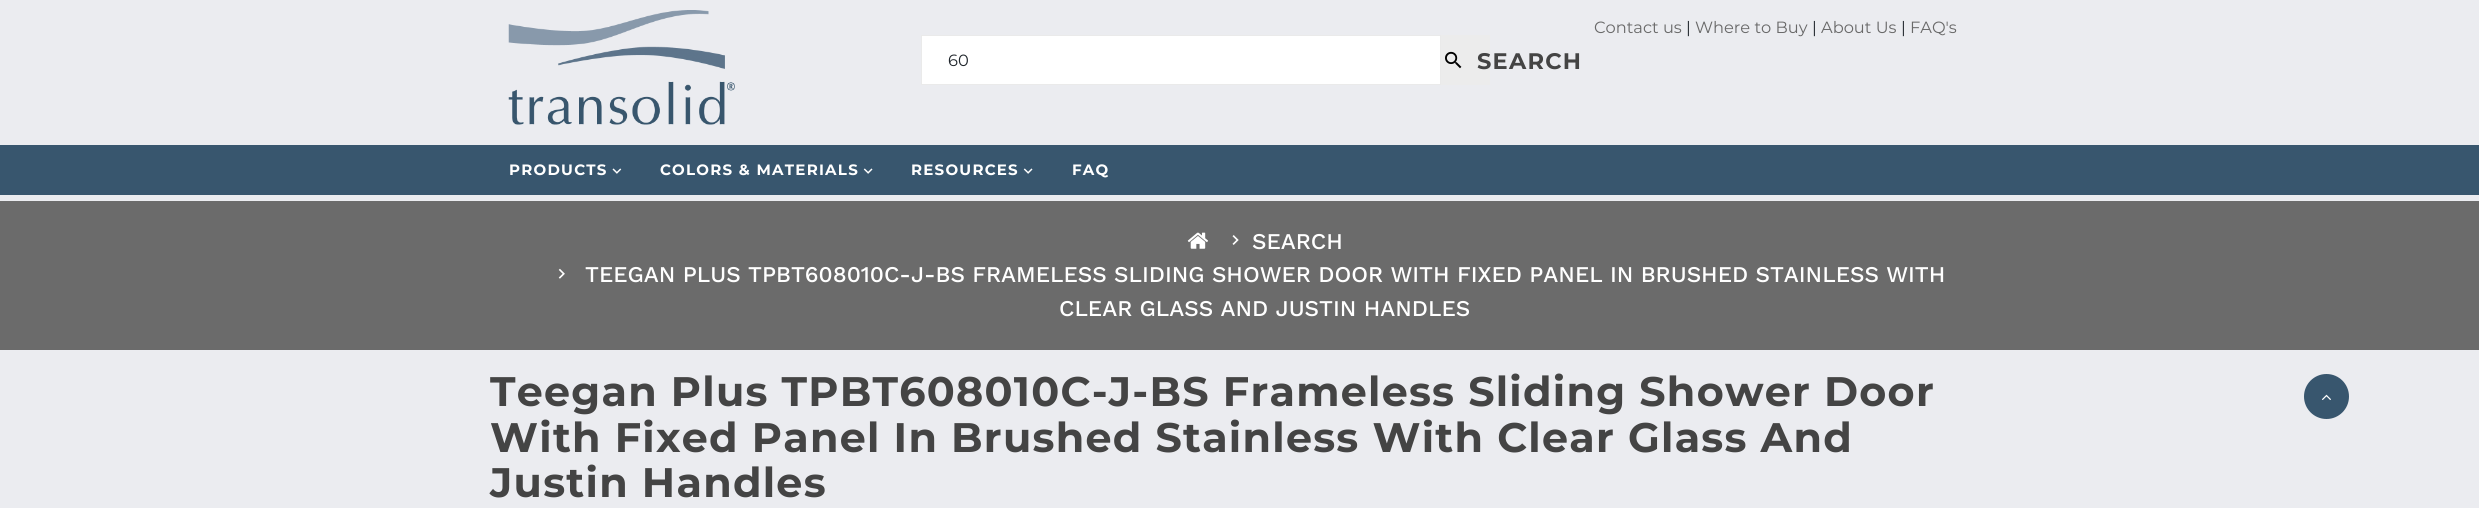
import math
import cairo

surface = cairo.ImageSurface(cairo.Format.RGB24, 2479, 508)
ctx = cairo.Context(surface)
options = cairo.FontOptions()
options.set_hint_metrics(cairo.HintMetrics.OFF)
options.set_hint_style(cairo.HintStyle.NONE)
ctx.set_font_options(options)
ctx.set_miter_limit(4)


def ink(r, g, b):
    ctx.set_source_rgb(r / 255, g / 255, b / 255)


def write(x, y, s, family, size, color, bold=False, italic=False):
    ctx.select_font_face(family, cairo.FontSlant.ITALIC if italic else cairo.FontSlant.NORMAL, cairo.FontWeight.BOLD if bold else cairo.FontWeight.NORMAL)
    ctx.set_font_size(size)
    ink(*color)
    ctx.move_to(x, y)
    ctx.show_text(s)


def write_spaced(x, y, s, letter, word):
    ctx.move_to(x, y)
    for ch in s:
        ctx.show_text(ch)
        ctx.rel_move_to(letter + word * (ch == ' '), 0)


def block(x, y, w, h, *color):
    ink(*color)
    ctx.rectangle(x, y, w, h)
    ctx.fill()


def paste(path, x, y, w, h):
    ctx.save()
    ctx.set_source_surface(cairo.ImageSurface.create_from_png(path), x, y)
    ctx.rectangle(x, y, w, h)
    ctx.fill()
    ctx.restore()


s1 = dict(family="Montserrat", size=16.25, color=(105, 105, 105))
s2 = dict(family="Montserrat", size=16.25, color=(31, 37, 43))
s3 = dict(family="Work Sans Medium", size=22.5, color=(255, 255, 255))

ink(235, 236, 240)
ctx.paint()
paste("pic1.png", 508, 10, 227, 115)
write(1594, 33, "Contact us", **s1)
write(1686, 33, "|", **s2)
write(1695, 33, "Where to Buy", **s1)
write(1812, 33, "|", **s2)
write(1821, 33, "About Us", **s1)
write(1901, 33, "|", **s2)
write(1910, 33, "FAQ's", **s1)
ink(255, 255, 255)
ctx.rectangle(921.5, 35.5, 519, 49)
ctx.fill_preserve()
ink(234, 234, 234)
ctx.set_line_width(1)
ctx.stroke()
write(948, 66, "60", **s2)
block(1441, 35, 49, 50, 236, 236, 236)
paste("pic2.png", 1445, 51, 17, 18)
ctx.select_font_face("Montserrat", cairo.FontSlant.NORMAL, cairo.FontWeight.BOLD)
ctx.set_font_size(22.5)
ink(68, 68, 68)
write_spaced(1477, 69, "SEARCH", 1.25, 0)
block(0, 145, 2479, 50, 56, 86, 110)
ctx.set_font_size(15)
ink(255, 255, 255)
write_spaced(509, 175, "PRODUCTS", 1.25, 0)
paste("pic3.png", 612, 168, 10, 6)
write_spaced(660, 175, "COLORS & MATERIALS", 1.25, 0)
paste("pic4.png", 863, 168, 10, 6)
write_spaced(911, 175, "RESOURCES", 1.25, 0)
paste("pic4.png", 1023, 168, 10, 6)
write_spaced(1072, 175, "FAQ", 1.25, 0)
block(0, 201, 2479, 149, 107, 107, 107)
paste("pic5.png", 1187, 232, 21, 17)
paste("pic6.png", 1232, 235, 7, 10)
write(1252, 249, "SEARCH", **s3)
paste("pic7.png", 558, 268, 7, 11)
write(585, 282, "TEEGAN PLUS TPBT608010C-J-BS FRAMELESS SLIDING SHOWER DOOR WITH FIXED PANEL IN BRUSHED STAINLESS WITH", **s3)
write(1059, 316, "CLEAR GLASS AND JUSTIN HANDLES", **s3)
ctx.select_font_face("Montserrat", cairo.FontSlant.NORMAL, cairo.FontWeight.BOLD)
ctx.set_font_size(41.25)
ink(68, 68, 68)
write_spaced(490, 406, "Teegan Plus TPBT608010C-J-BS Frameless Sliding Shower Door", 1.25, 0)
write_spaced(490, 452, "With Fixed Panel In Brushed Stainless With Clear Glass And", 1.25, 0)
write_spaced(490, 497, "Justin Handles", 1.25, 0)
ink(56, 86, 110)
ctx.new_path()
ctx.arc(2326.5, 396.5, 22.5, 0, 2 * math.pi)
ctx.fill()
paste("pic8.png", 2322, 394, 9, 6)
surface.write_to_png("screenshot.png")
